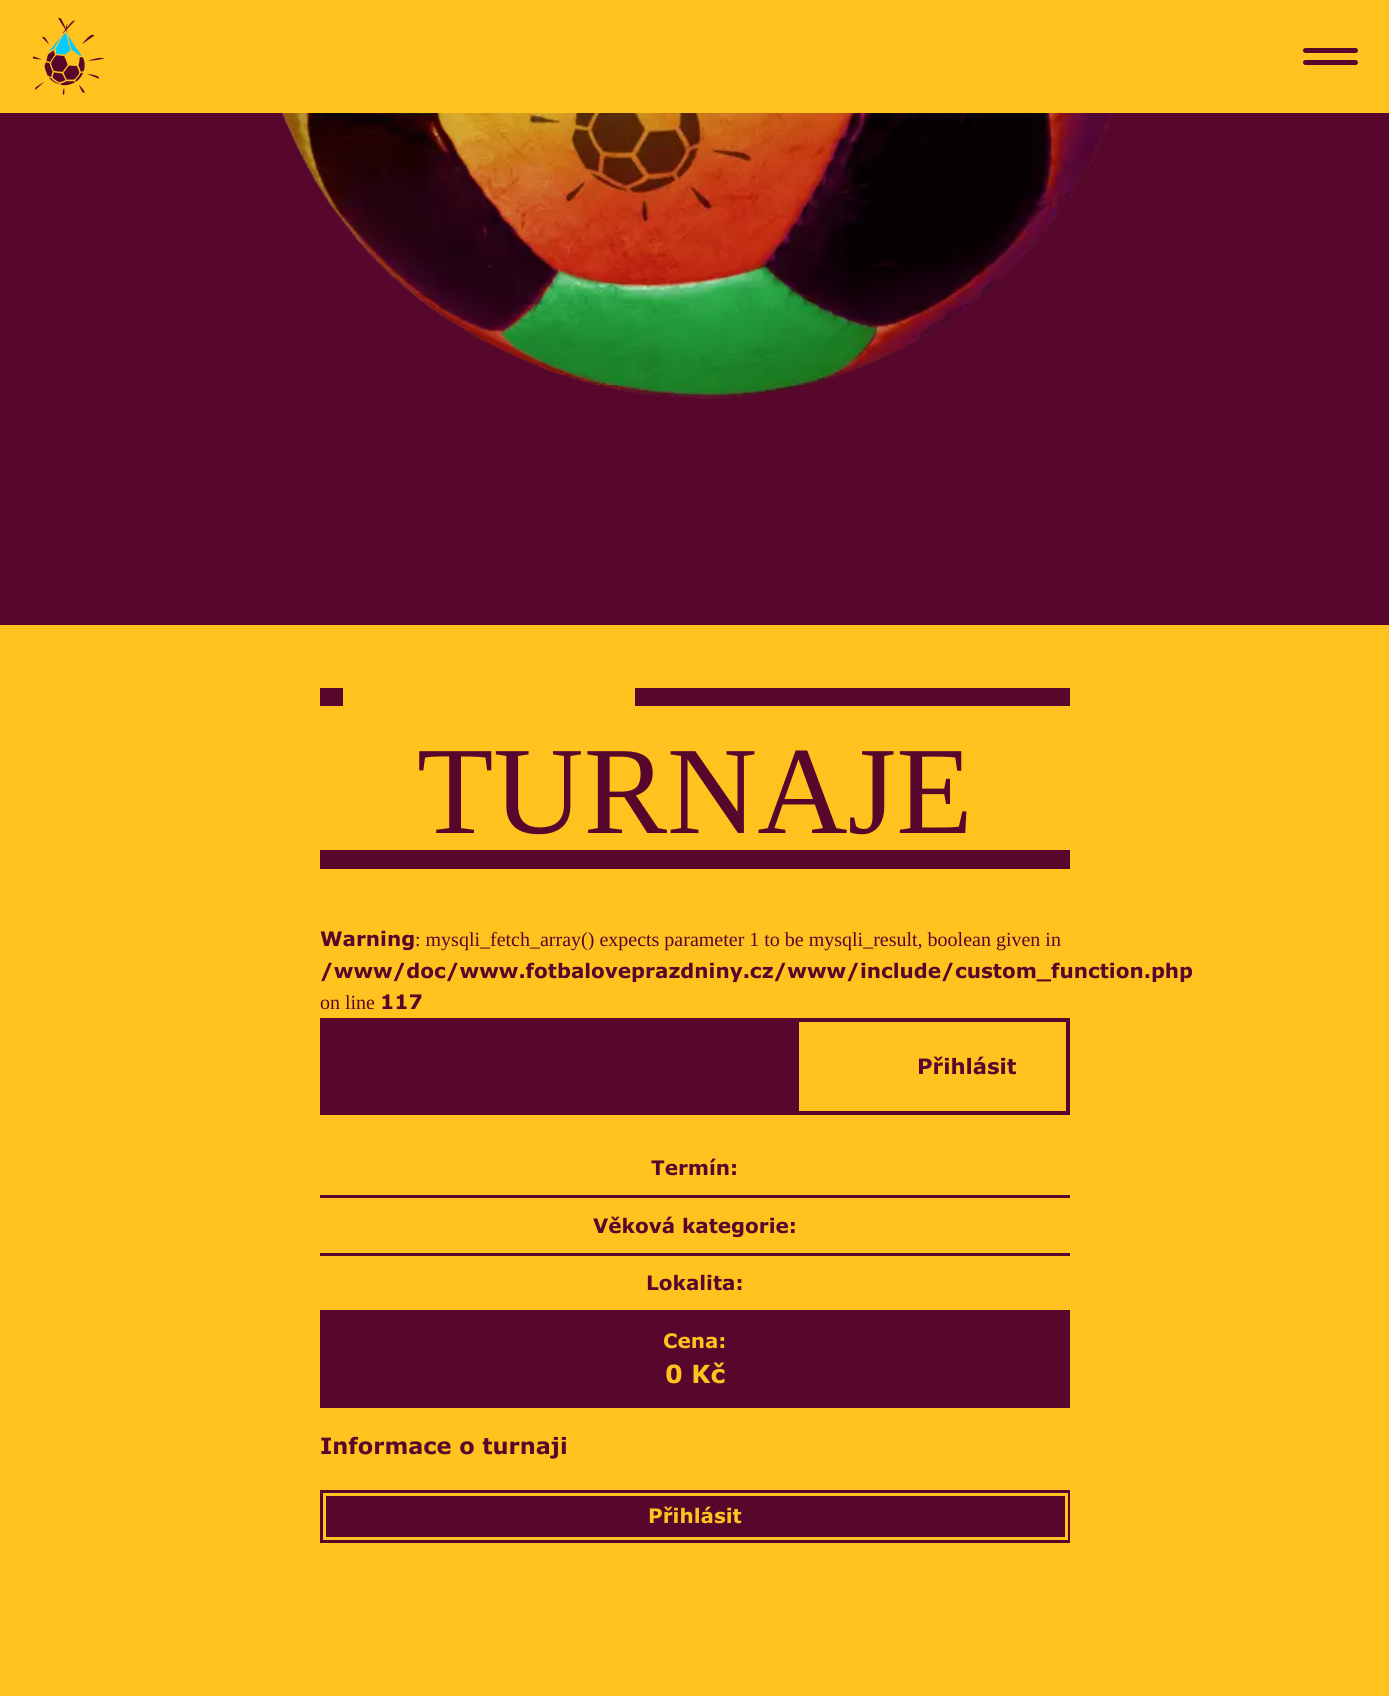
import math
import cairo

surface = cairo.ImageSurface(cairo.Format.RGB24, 1389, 1696)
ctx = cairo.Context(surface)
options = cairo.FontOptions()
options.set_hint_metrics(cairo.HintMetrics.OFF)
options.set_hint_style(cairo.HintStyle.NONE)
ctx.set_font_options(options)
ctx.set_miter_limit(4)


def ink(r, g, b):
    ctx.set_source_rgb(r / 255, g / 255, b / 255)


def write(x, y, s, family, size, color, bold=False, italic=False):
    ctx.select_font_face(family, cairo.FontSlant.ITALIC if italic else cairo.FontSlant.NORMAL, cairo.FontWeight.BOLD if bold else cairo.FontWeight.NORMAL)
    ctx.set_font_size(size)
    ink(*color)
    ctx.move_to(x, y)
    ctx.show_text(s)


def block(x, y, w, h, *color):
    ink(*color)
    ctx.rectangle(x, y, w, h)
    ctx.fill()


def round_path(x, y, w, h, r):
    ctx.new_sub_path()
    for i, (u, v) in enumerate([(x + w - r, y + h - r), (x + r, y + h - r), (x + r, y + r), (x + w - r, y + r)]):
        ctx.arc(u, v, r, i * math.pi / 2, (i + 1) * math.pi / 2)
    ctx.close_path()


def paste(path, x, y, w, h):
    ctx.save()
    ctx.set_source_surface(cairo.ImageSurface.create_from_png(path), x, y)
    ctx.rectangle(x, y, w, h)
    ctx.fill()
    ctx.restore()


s1 = dict(family="Liberation Serif", size=125, color=(87, 7, 44))
s2 = dict(family="Verdana", size=20, color=(87, 7, 44), bold=True)
s3 = dict(family="Liberation Serif", size=20, color=(87, 7, 44))
s4 = dict(family="Verdana", size=21.25, color=(87, 7, 44), bold=True)
s5 = dict(family="Verdana", size=20, color=(255, 194, 31), bold=True)
s6 = dict(family="Verdana", size=25, color=(255, 194, 31), bold=True)
s7 = dict(family="Verdana", size=22.5, color=(87, 7, 44), bold=True)

ink(87, 7, 44)
ctx.paint()
block(0, 0, 1389, 113, 255, 194, 31)
paste("pic1.png", 33, 18, 71, 77)
ink(87, 7, 44)
round_path(1303, 48, 55, 5, 2.5)
ctx.fill()
round_path(1303, 60, 55, 5, 2.5)
ctx.fill()
paste("pic2.png", 281, 113, 834, 286)
block(0, 625, 1389, 1071, 255, 194, 31)
block(320, 688, 750, 18, 87, 7, 44)
block(320, 850, 750, 19, 87, 7, 44)
block(343, 688, 292, 18, 255, 194, 31)
write(417, 833, "TURNAJE", **s1)
write(320, 946, "Warning", **s2)
write(415, 946, ": mysqli_fetch_array() expects parameter 1 to be mysqli_result, boolean given in", **s3)
write(320, 978, "/www/doc/www.fotbaloveprazdniny.cz/www/include/custom_function.php", **s2)
write(320, 1009, "on line", **s3)
write(380, 1009, "117", **s2)
block(320, 1018, 475, 97, 87, 7, 44)
ctx.rectangle(797, 1020, 271, 93)
ctx.set_line_width(4)
ctx.stroke()
write(917, 1074, "Přihlásit", **s4)
block(320, 1195, 750, 3, 87, 7, 44)
write(651, 1175, "Termín:", **s2)
block(320, 1253, 750, 3, 87, 7, 44)
write(593, 1233, "Věková kategorie:", **s2)
block(320, 1310, 750, 98, 87, 7, 44)
write(646, 1290, "Lokalita:", **s2)
write(663, 1348, "Cena:", **s5)
write(665, 1383, "0 Kč", **s6)
write(320, 1454, "Informace o turnaji", **s7)
block(320, 1490, 750, 53, 87, 7, 44)
ctx.rectangle(324.5, 1494.5, 742, 44)
ink(255, 194, 31)
ctx.set_line_width(3)
ctx.stroke()
write(648, 1523, "Přihlásit", **s5)
surface.write_to_png("screenshot.png")
